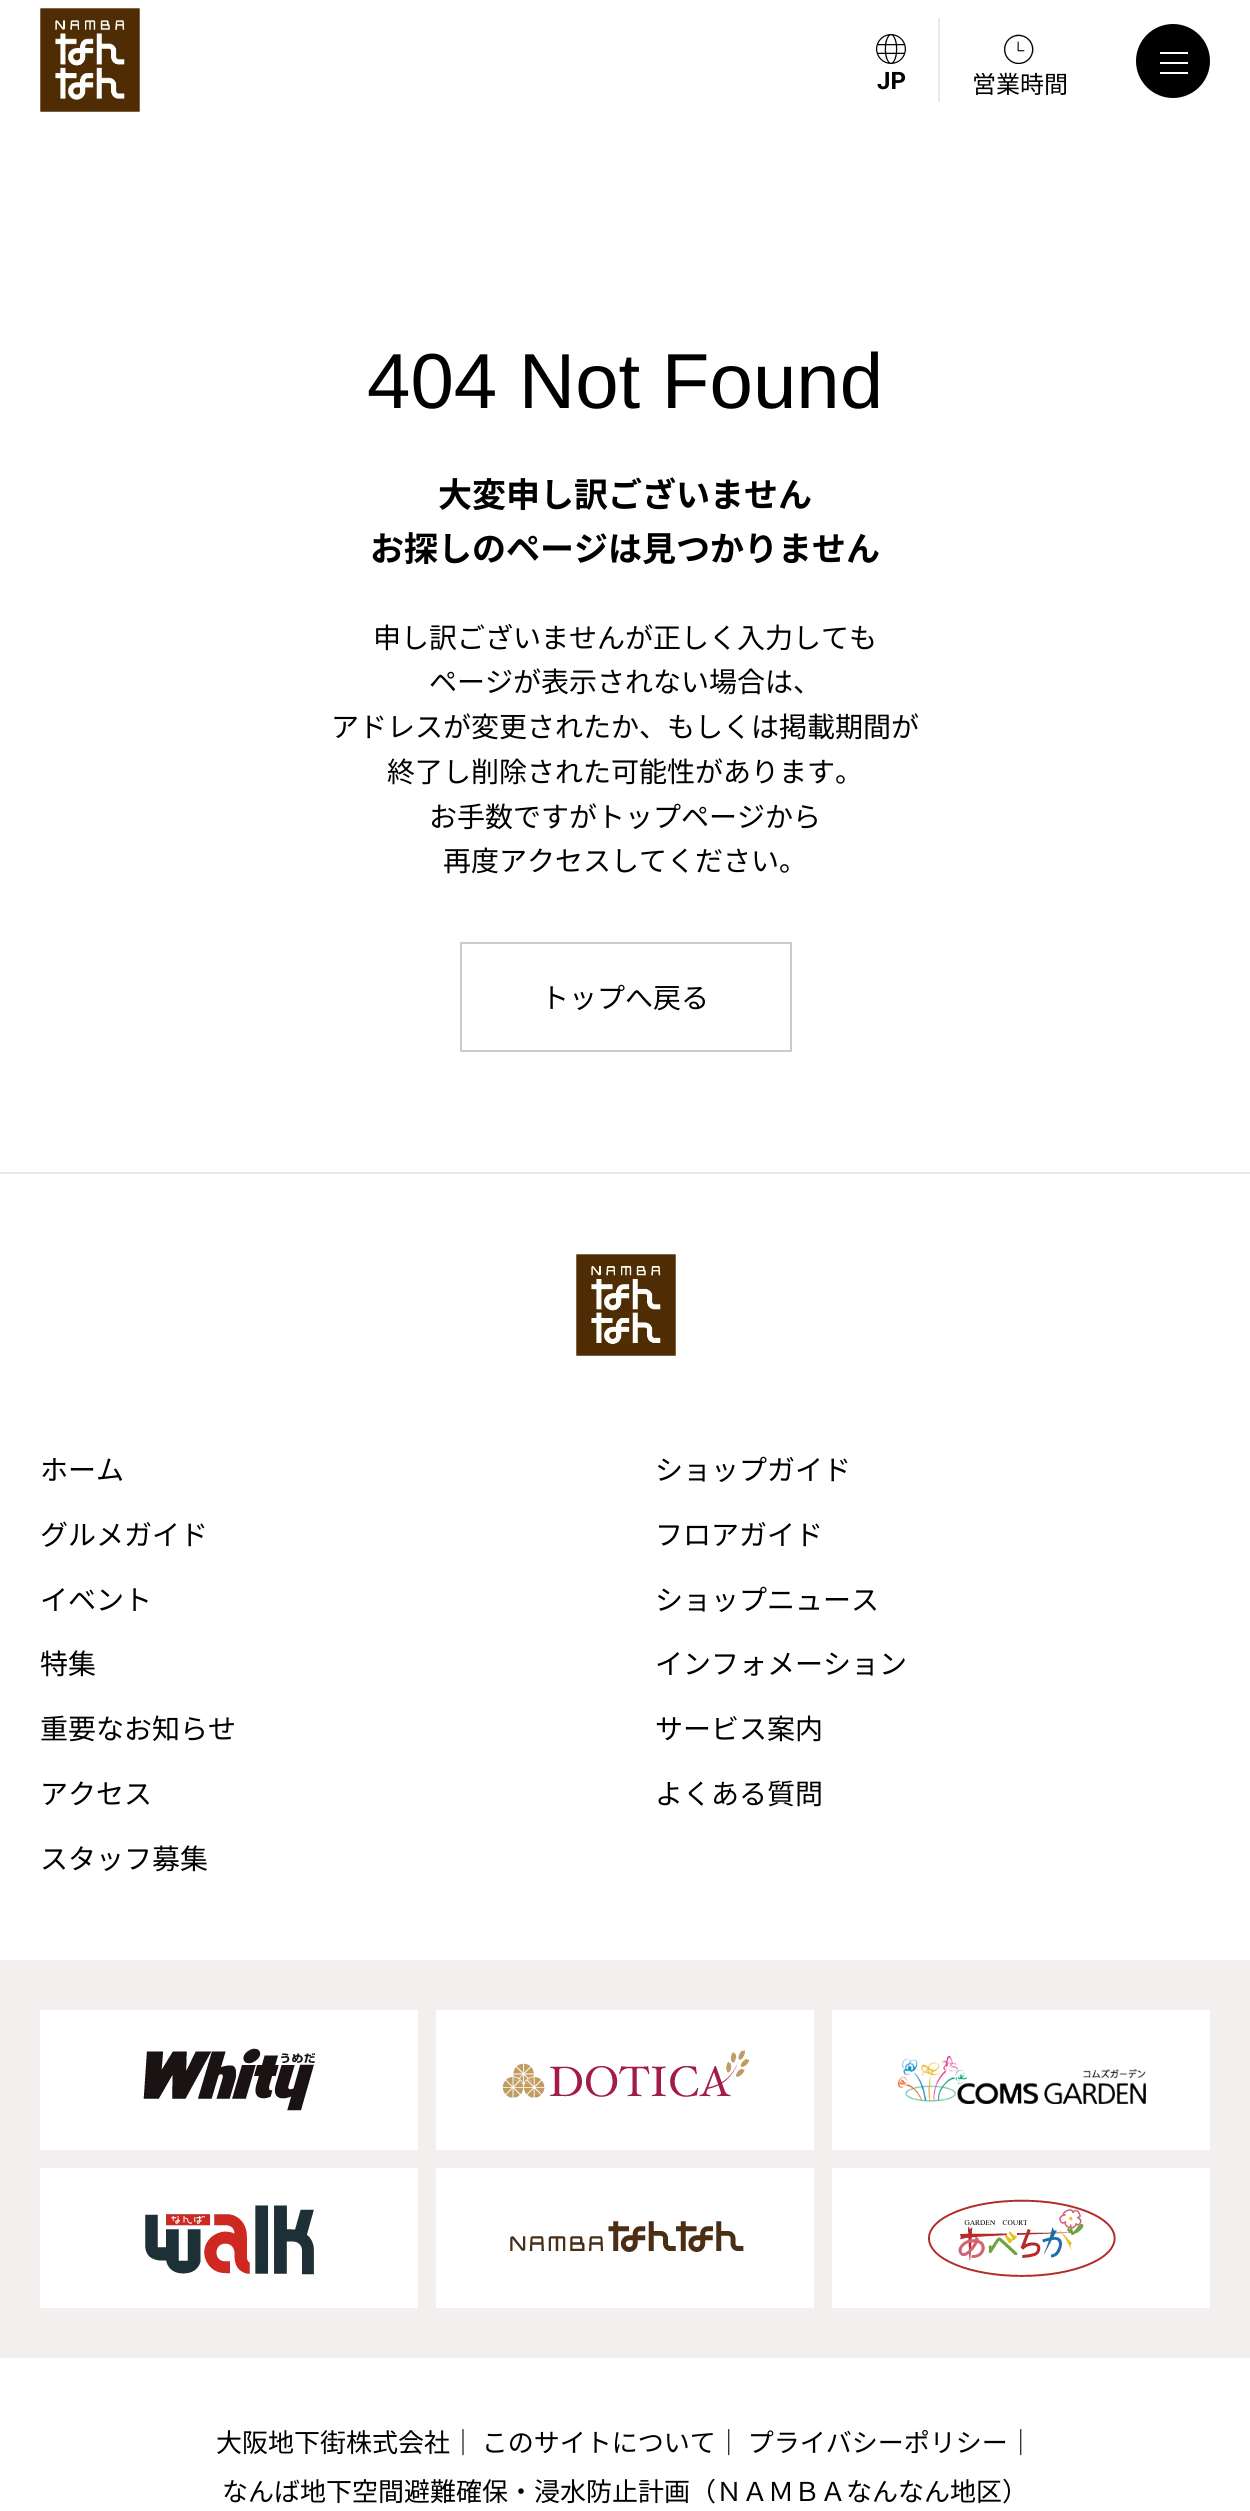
import math
import cairo

surface = cairo.ImageSurface(cairo.Format.RGB24, 1250, 2511)
ctx = cairo.Context(surface)
options = cairo.FontOptions()
options.set_hint_metrics(cairo.HintMetrics.OFF)
options.set_hint_style(cairo.HintStyle.NONE)
ctx.set_font_options(options)
ctx.set_miter_limit(4)


def ink(r, g, b):
    ctx.set_source_rgb(r / 255, g / 255, b / 255)


def write(x, y, s, family, size, color, bold=False, italic=False):
    ctx.select_font_face(family, cairo.FontSlant.ITALIC if italic else cairo.FontSlant.NORMAL, cairo.FontWeight.BOLD if bold else cairo.FontWeight.NORMAL)
    ctx.set_font_size(size)
    ink(*color)
    ctx.move_to(x, y)
    ctx.show_text(s)


def block(x, y, w, h, *color):
    ink(*color)
    ctx.rectangle(x, y, w, h)
    ctx.fill()


def paste(path, x, y, w, h):
    ctx.save()
    ctx.set_source_surface(cairo.ImageSurface.create_from_png(path), x, y)
    ctx.rectangle(x, y, w, h)
    ctx.fill()
    ctx.restore()


s1 = dict(family="Roboto", size=24, color=(0, 0, 0), bold=True)
s2 = dict(family="Noto Sans JP", size=24, color=(0, 0, 0))
s3 = dict(family="Liberation Sans", size=78, color=(0, 0, 0))
s4 = dict(family="Noto Sans JP", size=34, color=(0, 0, 0), bold=True)
s5 = dict(family="Noto Sans JP", size=28, color=(0, 0, 0))
s6 = dict(family="Noto Sans JP", size=26, color=(0, 0, 0))

ink(255, 255, 255)
ctx.paint()
paste("pic1.png", 40, 8, 100, 104)
block(938, 18, 2, 84, 234, 234, 234)
paste("pic2.png", 876, 34, 30, 30)
write(877, 89, "JP", **s1)
paste("pic3.png", 1004, 34, 30, 30)
write(972, 93, "営業時間", **s2)
ctx.new_path()
ctx.arc(1173, 61, 37, 0, 2 * math.pi)
ctx.fill()
block(1160, 62, 28, 2, 255, 255, 255)
block(1160, 52, 28, 2, 255, 255, 255)
block(1160, 72, 28, 2, 255, 255, 255)
write(367, 408, "404 Not Found", **s3)
write(438, 507, "大変申し訳ございません", **s4)
write(370, 561, "お探しのページは見つかりません", **s4)
write(373, 648, "申し訳ございませんが正しく入力しても", **s5)
write(429, 692, "ページが表示されない場合は、", **s5)
write(331, 737, "アドレスが変更されたか、もしくは掲載期間が", **s5)
write(387, 782, "終了し削除された可能性があります。", **s5)
write(429, 827, "お手数ですがトップページから", **s5)
write(443, 871, "再度アクセスしてください。", **s5)
ctx.rectangle(461, 943, 330, 108)
ink(204, 204, 204)
ctx.stroke()
write(541, 1008, "トップへ戻る", **s5)
block(0, 1172, 1250, 2, 232, 232, 232)
paste("pic4.png", 576, 1254, 100, 102)
write(40, 1480, "ホーム", **s5)
write(40, 1545, "グルメガイド", **s5)
write(40, 1610, "イベント", **s5)
write(40, 1674, "特集", **s5)
write(40, 1739, "重要なお知らせ", **s5)
write(40, 1804, "アクセス", **s5)
write(40, 1869, "スタッフ募集", **s5)
write(655, 1480, "ショップガイド", **s5)
write(655, 1545, "フロアガイド", **s5)
write(655, 1610, "ショップニュース", **s5)
write(655, 1674, "インフォメーション", **s5)
write(655, 1739, "サービス案内", **s5)
write(655, 1804, "よくある質問", **s5)
block(0, 1960, 1250, 398, 244, 239, 239)
block(40, 2010, 378, 140, 255, 255, 255)
paste("pic5.png", 143, 2048, 172, 63)
block(436, 2010, 378, 140, 255, 255, 255)
paste("pic6.png", 502, 2050, 248, 48)
block(832, 2010, 378, 140, 255, 255, 255)
paste("pic7.png", 898, 2056, 248, 48)
block(40, 2168, 378, 140, 255, 255, 255)
paste("pic8.png", 145, 2205, 169, 70)
block(436, 2168, 378, 140, 255, 255, 255)
paste("pic9.png", 510, 2221, 234, 31)
block(832, 2168, 378, 140, 255, 255, 255)
paste("pic10.png", 928, 2199, 188, 78)
write(216, 2452, "大阪地下街株式会社｜ このサイトについて｜ プライバシーポリシー｜", **s6)
write(222, 2501, "なんば地下空間避難確保・浸水防止計画（ＮＡＭＢＡなんなん地区）", **s6)
surface.write_to_png("screenshot.png")
